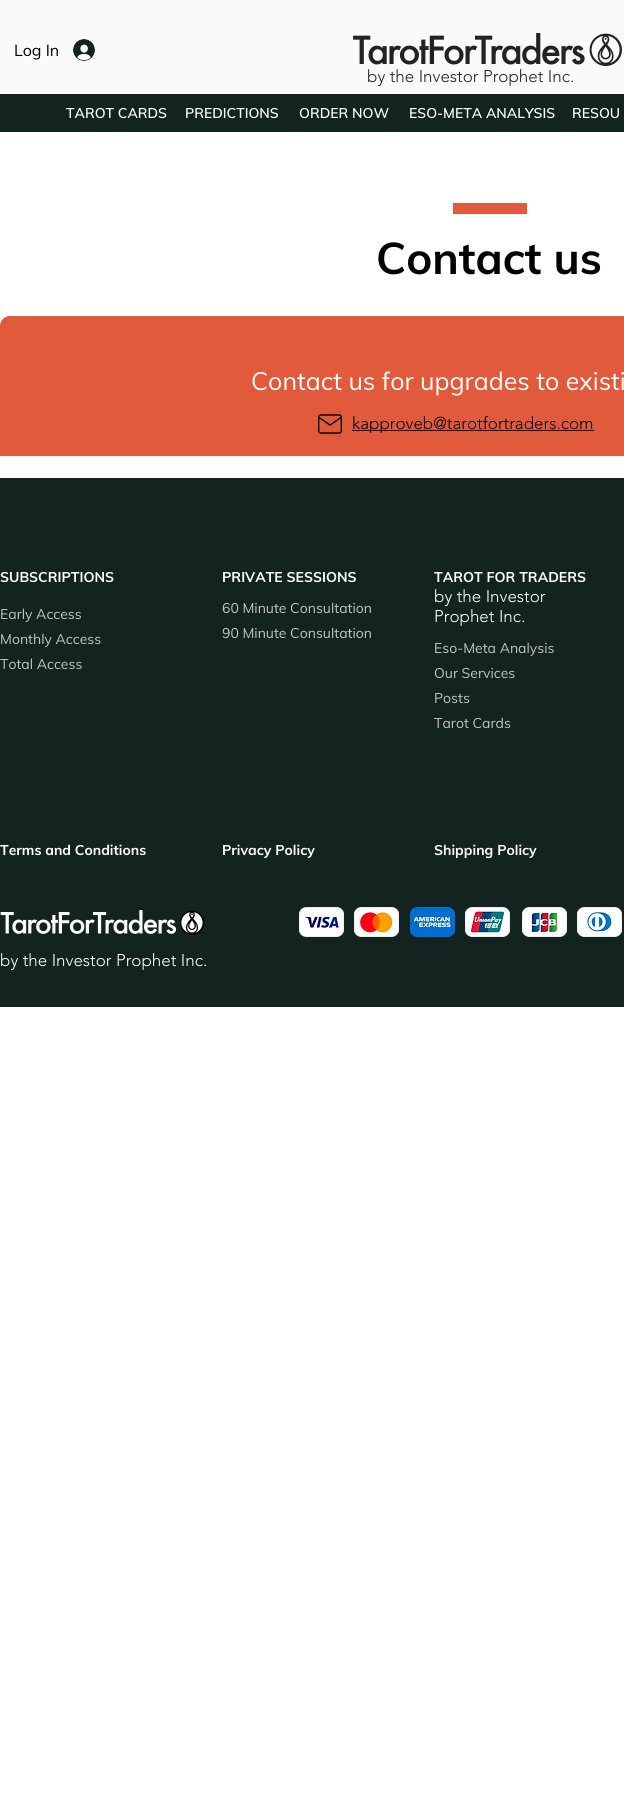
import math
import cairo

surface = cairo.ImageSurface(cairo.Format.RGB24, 624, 1801)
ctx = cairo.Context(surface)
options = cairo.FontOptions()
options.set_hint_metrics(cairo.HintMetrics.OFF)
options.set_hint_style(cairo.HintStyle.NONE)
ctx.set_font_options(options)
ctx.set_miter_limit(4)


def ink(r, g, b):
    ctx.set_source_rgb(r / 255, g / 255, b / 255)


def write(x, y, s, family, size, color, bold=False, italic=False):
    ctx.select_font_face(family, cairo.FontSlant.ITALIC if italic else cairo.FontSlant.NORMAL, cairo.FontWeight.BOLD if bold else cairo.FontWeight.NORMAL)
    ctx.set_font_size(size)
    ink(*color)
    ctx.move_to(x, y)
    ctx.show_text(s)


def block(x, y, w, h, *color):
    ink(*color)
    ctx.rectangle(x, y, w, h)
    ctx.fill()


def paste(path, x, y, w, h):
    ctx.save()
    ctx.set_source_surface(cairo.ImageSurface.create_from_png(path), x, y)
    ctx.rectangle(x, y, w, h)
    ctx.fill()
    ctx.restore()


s1 = dict(family="Mulish", size=16, color=(0, 0, 0))
s2 = dict(family="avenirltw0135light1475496 Light", size=17, color=(36, 35, 35))
s3 = dict(family="Mulish SemiBold", size=14, color=(255, 255, 255))
s4 = dict(family="Mulish", size=44, color=(0, 0, 0), bold=True)
s5 = dict(family="Mulish", size=25, color=(255, 255, 255))
s6 = dict(family="avenirltw0135light1475496 Light", size=17, color=(0, 0, 0))
s7 = dict(family="Mulish", size=14, color=(255, 255, 255), bold=True)
s8 = dict(family="Mulish", size=14, color=(196, 196, 196))
s9 = dict(family="avenirltw0135light1475496 Light", size=17, color=(255, 255, 255))

ink(255, 255, 255)
ctx.paint()
block(0, 0, 624, 94, 250, 250, 250)
write(14, 56, "Log In", **s1)
paste("pic1.png", 73, 39, 22, 22)
paste("pic2.png", 353, 33, 269, 33)
write(367, 82, "by the Investor Prophet Inc.", **s2)
block(0, 94, 624, 38, 19, 35, 32)
write(66, 118, "TAROT CARDS", **s3)
write(185, 118, "PREDICTIONS", **s3)
write(299, 118, "ORDER NOW", **s3)
write(409, 118, "ESO-META ANALYSIS", **s3)
write(572, 118, "RESOU", **s3)
block(453, 203, 74, 11, 225, 90, 60)
write(376, 274, "Contact us", **s4)
ink(225, 90, 60)
ctx.new_path()
ctx.move_to(10, 316)
ctx.line_to(624, 316)
ctx.curve_to(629.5, 316, 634, 320.5, 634, 326)
ctx.line_to(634, 456)
ctx.line_to(0, 456)
ctx.line_to(0, 326)
ctx.curve_to(0, 320.5, 4.5, 316, 10, 316)
ctx.close_path()
ctx.fill()
write(251, 390, "Contact us for upgrades to existi", **s5)
paste("pic3.png", 318, 414, 24, 20)
block(352, 430, 242, 1, 0, 0, 0)
write(352, 429, "kapproveb@tarotfortraders.com", **s6)
block(0, 478, 624, 529, 19, 35, 32)
write(0, 582, "SUBSCRIPTIONS", **s7)
write(222, 582, "PRIVATE SESSIONS", **s7)
write(222, 613, "60 Minute Consultation", **s8)
write(222, 638, "90 Minute Consultation", **s8)
write(434, 582, "TAROT FOR TRADERS", **s7)
write(434, 602, "by the Investor", **s9)
write(434, 622, "Prophet Inc.", **s9)
write(434, 653, "Eso-Meta Analysis", **s8)
write(434, 678, "Our Services", **s8)
write(434, 703, "Posts", **s8)
write(434, 728, "Tarot Cards", **s8)
write(0, 619, "Early Access", **s8)
write(0, 644, "Monthly Access", **s8)
write(0, 669, "Total Access", **s8)
write(0, 855, "Terms and Conditions", **s7)
write(222, 855, "Privacy Policy", **s7)
write(434, 855, "Shipping Policy", **s7)
paste("pic4.png", 0, 910, 205, 25)
paste("pic5.png", 299, 907, 45, 30)
paste("pic6.png", 354, 907, 45, 30)
paste("pic7.png", 410, 907, 45, 30)
paste("pic8.png", 465, 907, 45, 30)
paste("pic9.png", 522, 907, 45, 30)
paste("pic10.png", 577, 907, 45, 30)
write(0, 966, "by the Investor Prophet Inc.", **s9)
surface.write_to_png("screenshot.png")
